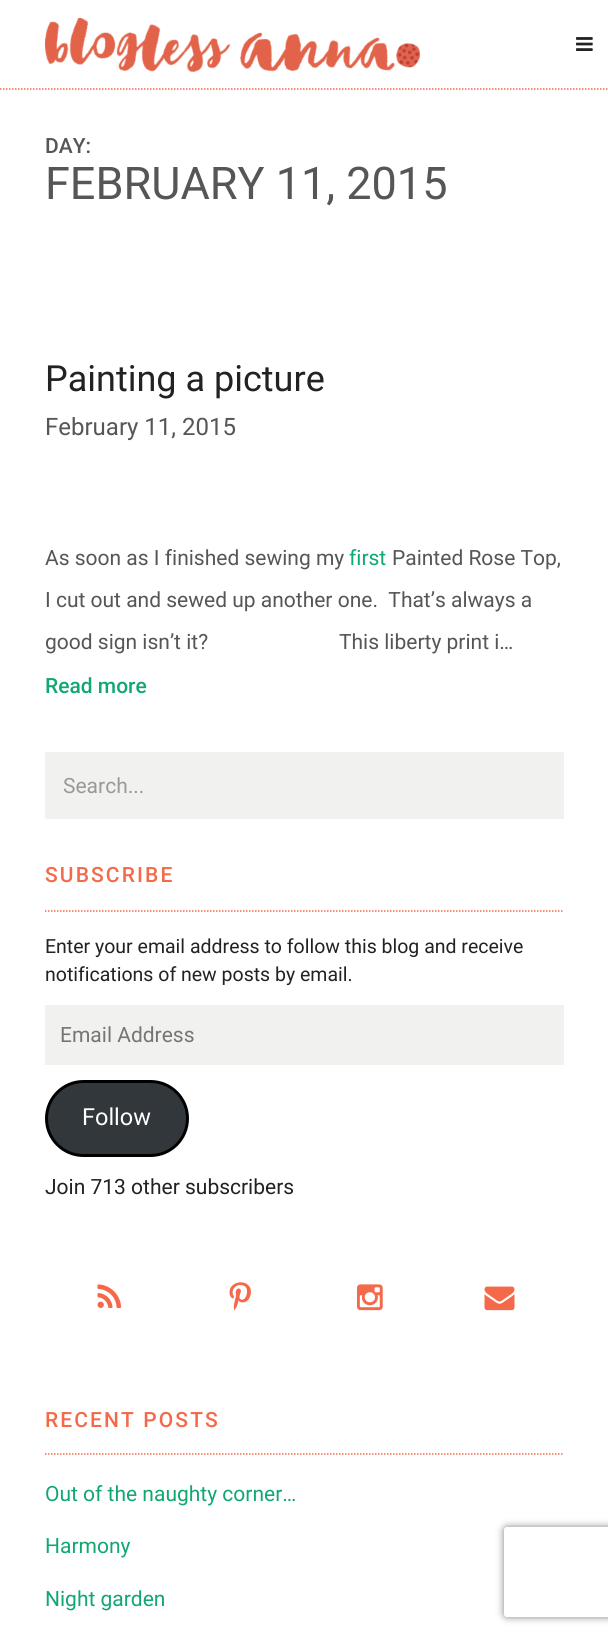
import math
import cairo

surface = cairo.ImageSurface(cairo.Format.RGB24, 608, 1637)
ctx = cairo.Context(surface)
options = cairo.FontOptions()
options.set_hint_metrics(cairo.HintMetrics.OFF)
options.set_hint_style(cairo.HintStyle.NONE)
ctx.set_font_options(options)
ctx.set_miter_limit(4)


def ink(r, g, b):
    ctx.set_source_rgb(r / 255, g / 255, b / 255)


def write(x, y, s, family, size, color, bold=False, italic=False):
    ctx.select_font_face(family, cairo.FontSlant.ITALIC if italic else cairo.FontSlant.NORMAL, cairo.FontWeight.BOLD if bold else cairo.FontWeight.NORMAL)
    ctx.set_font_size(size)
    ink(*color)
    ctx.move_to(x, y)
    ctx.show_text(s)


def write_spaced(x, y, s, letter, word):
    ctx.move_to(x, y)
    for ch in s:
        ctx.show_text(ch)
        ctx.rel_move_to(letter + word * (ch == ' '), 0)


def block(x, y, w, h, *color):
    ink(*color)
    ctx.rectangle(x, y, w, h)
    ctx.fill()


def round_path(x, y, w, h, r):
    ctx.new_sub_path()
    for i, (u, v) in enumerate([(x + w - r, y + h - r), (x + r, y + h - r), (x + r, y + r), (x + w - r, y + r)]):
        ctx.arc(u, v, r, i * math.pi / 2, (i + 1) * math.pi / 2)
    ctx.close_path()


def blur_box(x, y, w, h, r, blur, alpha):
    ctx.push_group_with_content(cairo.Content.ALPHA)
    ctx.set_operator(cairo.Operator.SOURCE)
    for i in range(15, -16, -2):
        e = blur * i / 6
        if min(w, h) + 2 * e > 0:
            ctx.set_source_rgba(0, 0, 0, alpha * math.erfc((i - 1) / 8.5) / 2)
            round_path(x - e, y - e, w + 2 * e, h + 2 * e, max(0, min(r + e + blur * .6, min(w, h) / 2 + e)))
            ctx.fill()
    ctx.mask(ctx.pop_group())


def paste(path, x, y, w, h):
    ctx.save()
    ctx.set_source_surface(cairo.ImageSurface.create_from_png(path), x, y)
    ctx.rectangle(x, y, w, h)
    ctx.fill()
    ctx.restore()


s1 = dict(family="Roboto Medium", size=21, color=(86, 86, 86))
s2 = dict(family="Roboto", size=45, color=(86, 86, 86))
s3 = dict(family="Roboto", size=36, color=(34, 34, 34))
s4 = dict(family="Roboto", size=24, color=(86, 86, 86))
s5 = dict(family="Roboto", size=21, color=(86, 86, 86))
s6 = dict(family="Roboto", size=21, color=(17, 167, 113))
s7 = dict(family="Roboto Medium", size=21, color=(17, 167, 113))
s8 = dict(family="Roboto", size=21, color=(153, 153, 153))
s9 = dict(family="Roboto", size=19.5, color=(34, 34, 34))
s10 = dict(family="Roboto", size=21, color=(117, 117, 117))
s11 = dict(family="Roboto", size=23.5, color=(255, 255, 255))
s12 = dict(family="Roboto", size=21, color=(34, 34, 34))

ink(255, 255, 255)
ctx.paint()
ctx.new_path()
ctx.move_to(0, 89)
ctx.line_to(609, 89)
ink(244, 105, 74)
ctx.set_line_width(1.5)
ctx.set_dash([1.5, 1.5])
ctx.stroke()
paste("pic1.png", 45, 18, 375, 54)
paste("pic2.png", 576, 37, 17, 14)
write(45, 153, "DAY:", **s1)
write(45, 199, "FEBRUARY 11, 2015", **s2)
write(45, 391, "Painting a picture", **s3)
write(45, 435, "February 11, 2015", **s4)
write(45, 565, "As soon as I finished sewing my", **s5)
write(349, 565, "first", **s6)
write(392, 565, "Painted Rose Top,", **s5)
write(45, 607, "I cut out and sewed up another one.  That’s always a", **s5)
write(45, 649, "good sign isn’t it?", **s5)
write(339, 649, "This liberty print i…", **s5)
write(45, 693, "Read more", **s7)
ink(241, 241, 240)
round_path(45, 752, 519, 67, 1.5)
ctx.fill()
write(63, 793, "Search...", **s8)
ctx.new_path()
ctx.move_to(45, 911)
ctx.line_to(564, 911)
ink(244, 105, 74)
ctx.stroke()
ctx.select_font_face("Roboto Medium")
write_spaced(45, 882, "SUBSCRIBE", 2.1, 0)
write(45, 953, "Enter your email address to follow this blog and receive", **s9)
write(45, 981, "notifications of new posts by email.", **s9)
block(45, 1005, 519, 60, 241, 241, 240)
write(60, 1042, "Email Address", **s10)
ink(50, 55, 60)
round_path(46.5, 1081.5, 141, 74, 37)
ctx.fill_preserve()
ink(0, 0, 0)
ctx.set_line_width(3)
ctx.set_dash([])
ctx.stroke()
write(82, 1125, "Follow", **s11)
write(45, 1194, "Join 713 other subscribers", **s12)
paste("pic3.png", 97, 1284, 25, 24)
paste("pic4.png", 229, 1282, 22, 29)
paste("pic5.png", 357, 1284, 26, 27)
paste("pic6.png", 484, 1286, 31, 25)
ctx.new_path()
ctx.move_to(45, 1454)
ctx.line_to(564, 1454)
ink(244, 105, 74)
ctx.set_line_width(1.5)
ctx.set_dash([1.5, 1.5])
ctx.stroke()
ctx.select_font_face("Roboto Medium")
write_spaced(45, 1427, "RECENT POSTS", 2.1, 0)
write(45, 1501, "Out of the naughty corner…", **s6)
write(45, 1553, "Harmony", **s6)
write(45, 1606, "Night garden", **s6)
ctx.save()
ctx.set_fill_rule(cairo.FillRule.EVEN_ODD)
ctx.new_path()
ctx.move_to(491, 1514)
ctx.line_to(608, 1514)
ctx.line_to(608, 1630)
ctx.line_to(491, 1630)
ctx.close_path()
ctx.move_to(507, 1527)
ctx.line_to(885, 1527)
ctx.curve_to(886.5, 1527, 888, 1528.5, 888, 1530)
ctx.line_to(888, 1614)
ctx.curve_to(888, 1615.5, 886.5, 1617, 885, 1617)
ctx.line_to(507, 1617)
ctx.curve_to(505.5, 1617, 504, 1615.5, 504, 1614)
ctx.line_to(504, 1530)
ctx.curve_to(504, 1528.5, 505.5, 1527, 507, 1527)
ctx.close_path()
ctx.clip()
ink(128, 128, 128)
blur_box(504, 1527, 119, 90, 3, 4, 1)
ctx.restore()
surface.write_to_png("screenshot.png")
